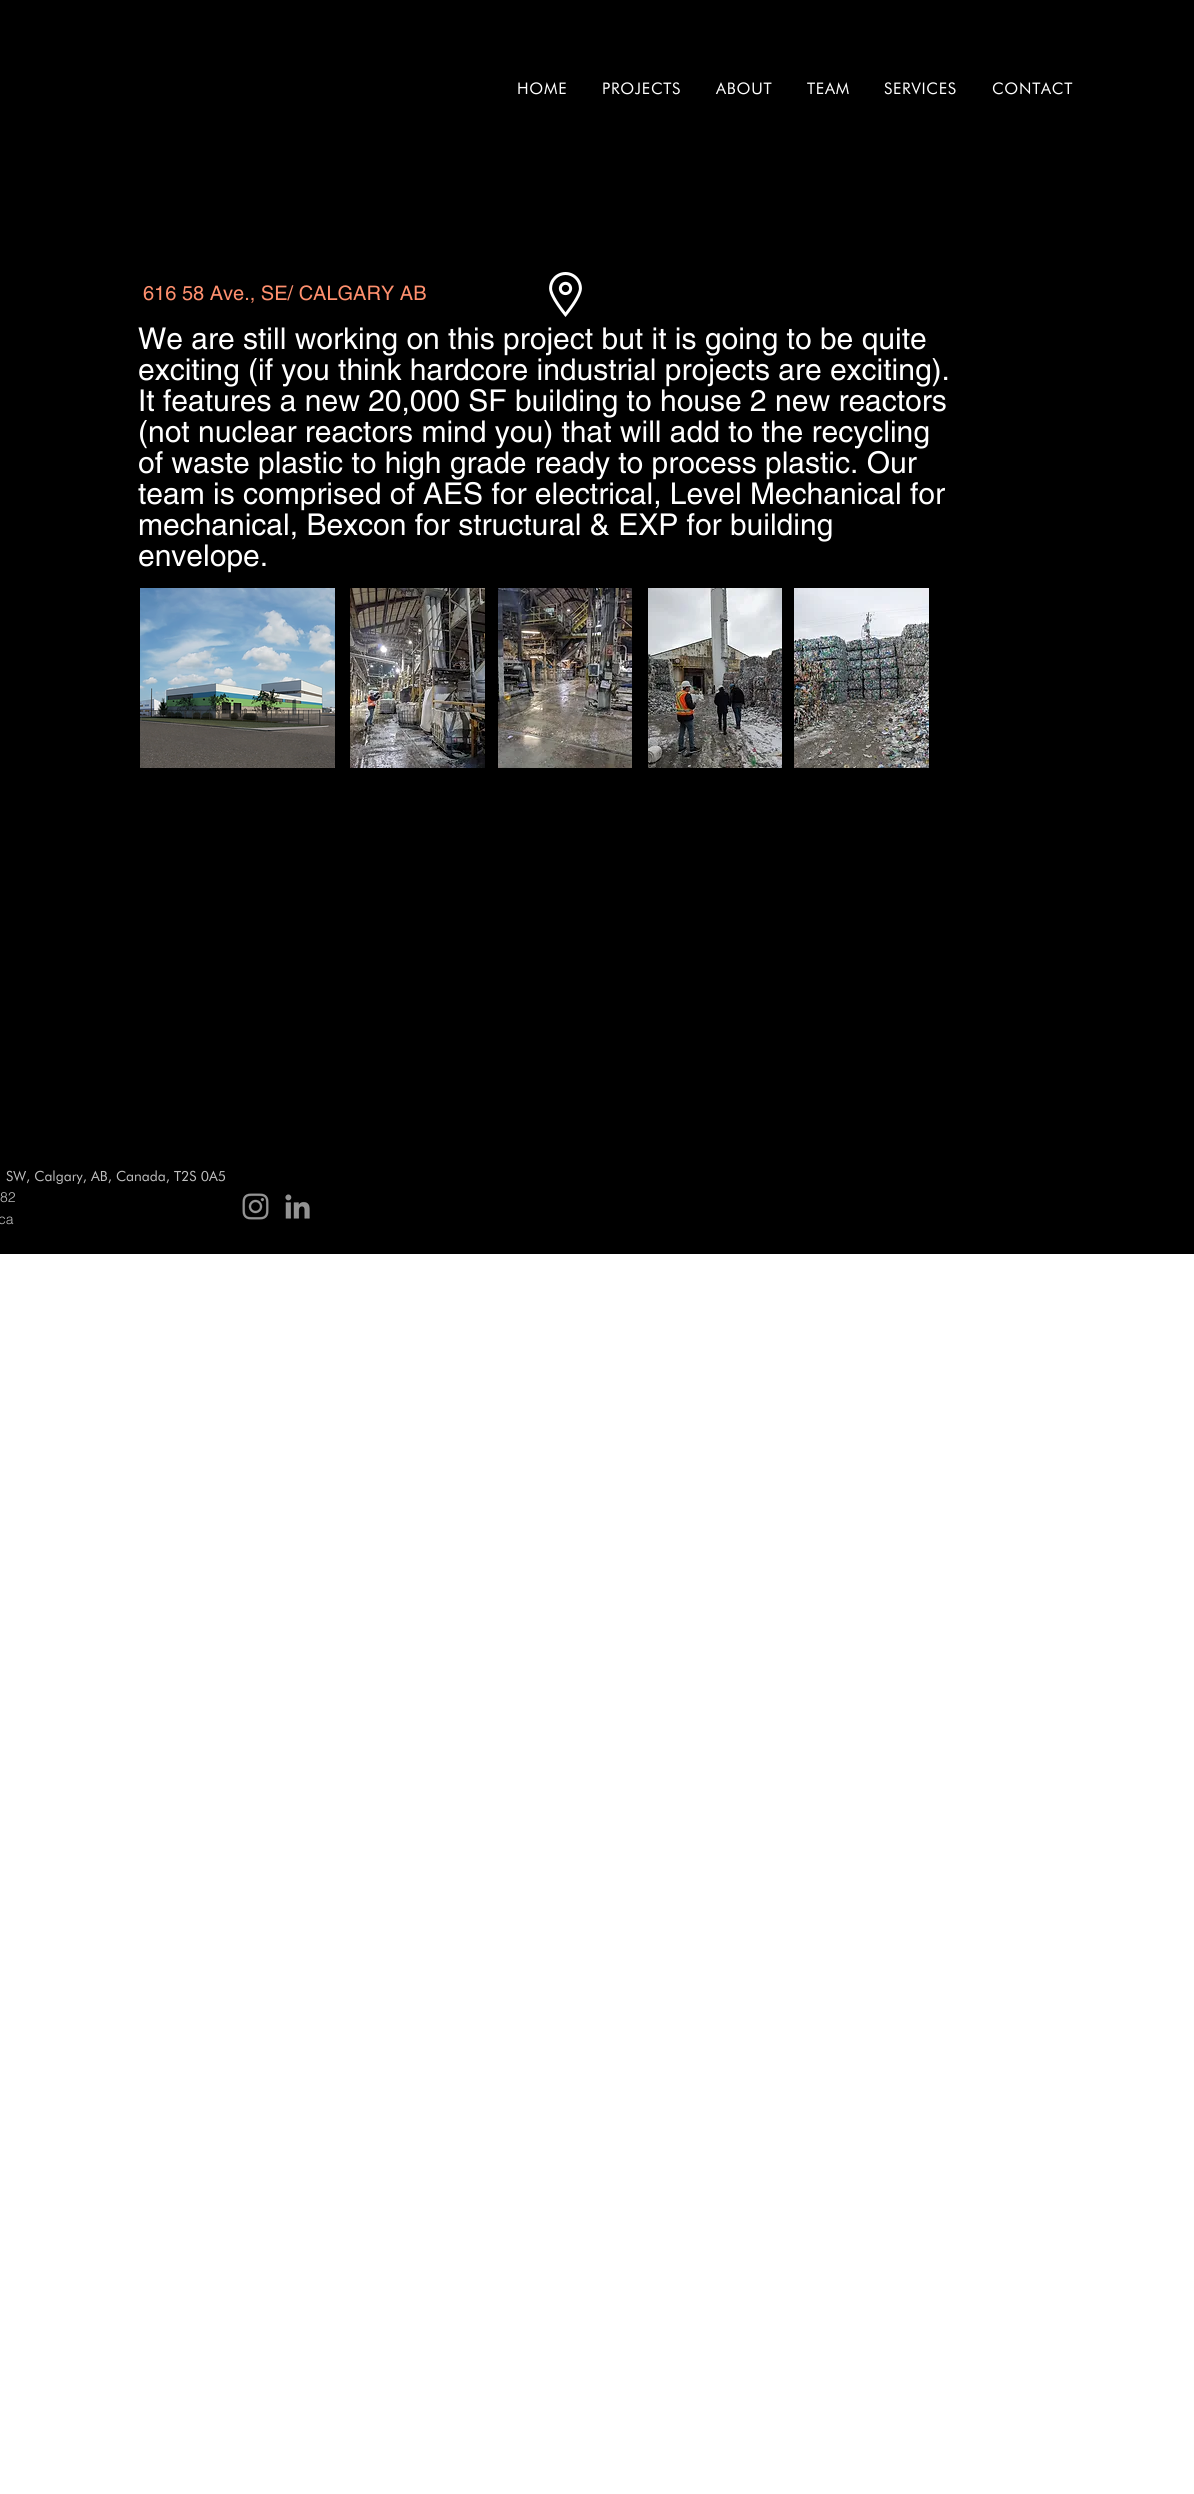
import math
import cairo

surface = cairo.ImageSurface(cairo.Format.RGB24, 1194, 2494)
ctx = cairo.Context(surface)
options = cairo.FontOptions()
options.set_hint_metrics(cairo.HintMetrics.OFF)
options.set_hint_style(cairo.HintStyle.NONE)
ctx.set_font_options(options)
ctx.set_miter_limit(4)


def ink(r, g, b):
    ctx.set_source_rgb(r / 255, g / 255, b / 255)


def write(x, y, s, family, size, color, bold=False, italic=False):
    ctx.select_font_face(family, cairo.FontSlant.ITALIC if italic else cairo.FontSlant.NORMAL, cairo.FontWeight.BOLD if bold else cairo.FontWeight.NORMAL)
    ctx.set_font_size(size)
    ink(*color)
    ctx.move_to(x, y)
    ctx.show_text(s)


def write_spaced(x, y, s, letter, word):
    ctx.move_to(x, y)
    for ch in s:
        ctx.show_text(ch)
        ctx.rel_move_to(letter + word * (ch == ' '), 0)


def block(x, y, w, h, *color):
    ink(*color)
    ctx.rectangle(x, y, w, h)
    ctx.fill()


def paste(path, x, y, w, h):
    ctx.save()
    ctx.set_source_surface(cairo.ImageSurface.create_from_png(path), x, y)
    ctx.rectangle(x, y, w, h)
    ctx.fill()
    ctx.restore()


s1 = dict(family="helvetica", size=20, color=(255, 144, 110))
s2 = dict(family="helvetica", size=30, color=(255, 255, 255))
s3 = dict(family="Futura", size=14, color=(191, 191, 191))
s4 = dict(family="helvetica Light", size=14, color=(191, 191, 191))

ink(255, 255, 255)
ctx.paint()
block(0, 0, 1194, 1254, 0, 0, 0)
ctx.select_font_face("Futura")
ctx.set_font_size(16)
ink(255, 255, 255)
write_spaced(517, 94, "HOME", 0.75, 0)
write_spaced(602, 94, "PROJECTS", 0.75, 0)
write_spaced(716, 94, "ABOUT", 0.75, 0)
write_spaced(807, 94, "TEAM", 0.75, 0)
write_spaced(884, 94, "SERVICES", 0.75, 0)
write_spaced(992, 94, "CONTACT", 0.75, 0)
write(143, 300, "616 58 Ave., SE/ CALGARY AB", **s1)
paste("pic1.png", 549, 272, 33, 45)
write(138, 349, "We are still working on this project but it is going to be quite", **s2)
write(138, 380, "exciting (if you think hardcore industrial projects are exciting).", **s2)
write(138, 411, "It features a new 20,000 SF building to house 2 new reactors", **s2)
write(138, 442, "(not nuclear reactors mind you) that will add to the recycling", **s2)
write(138, 473, "of waste plastic to high grade ready to process plastic. Our", **s2)
write(138, 504, "team is comprised of AES for electrical, Level Mechanical for", **s2)
write(138, 535, "mechanical, Bexcon for structural & EXP for building", **s2)
write(138, 566, "envelope.", **s2)
paste("pic2.png", 140, 588, 195, 180)
paste("pic3.png", 350, 588, 135, 180)
paste("pic4.png", 498, 588, 134, 180)
paste("pic5.png", 648, 588, 134, 180)
paste("pic6.png", 794, 588, 135, 180)
write(6, 1181, "SW, Calgary, AB, Canada, T2S 0A5", **s3)
write(0, 1202, "82", **s4)
paste("pic7.png", 242, 1193, 27, 27)
paste("pic8.png", 285, 1194, 25, 25)
write(-2, 1224, "ca", **s4)
surface.write_to_png("screenshot.png")
